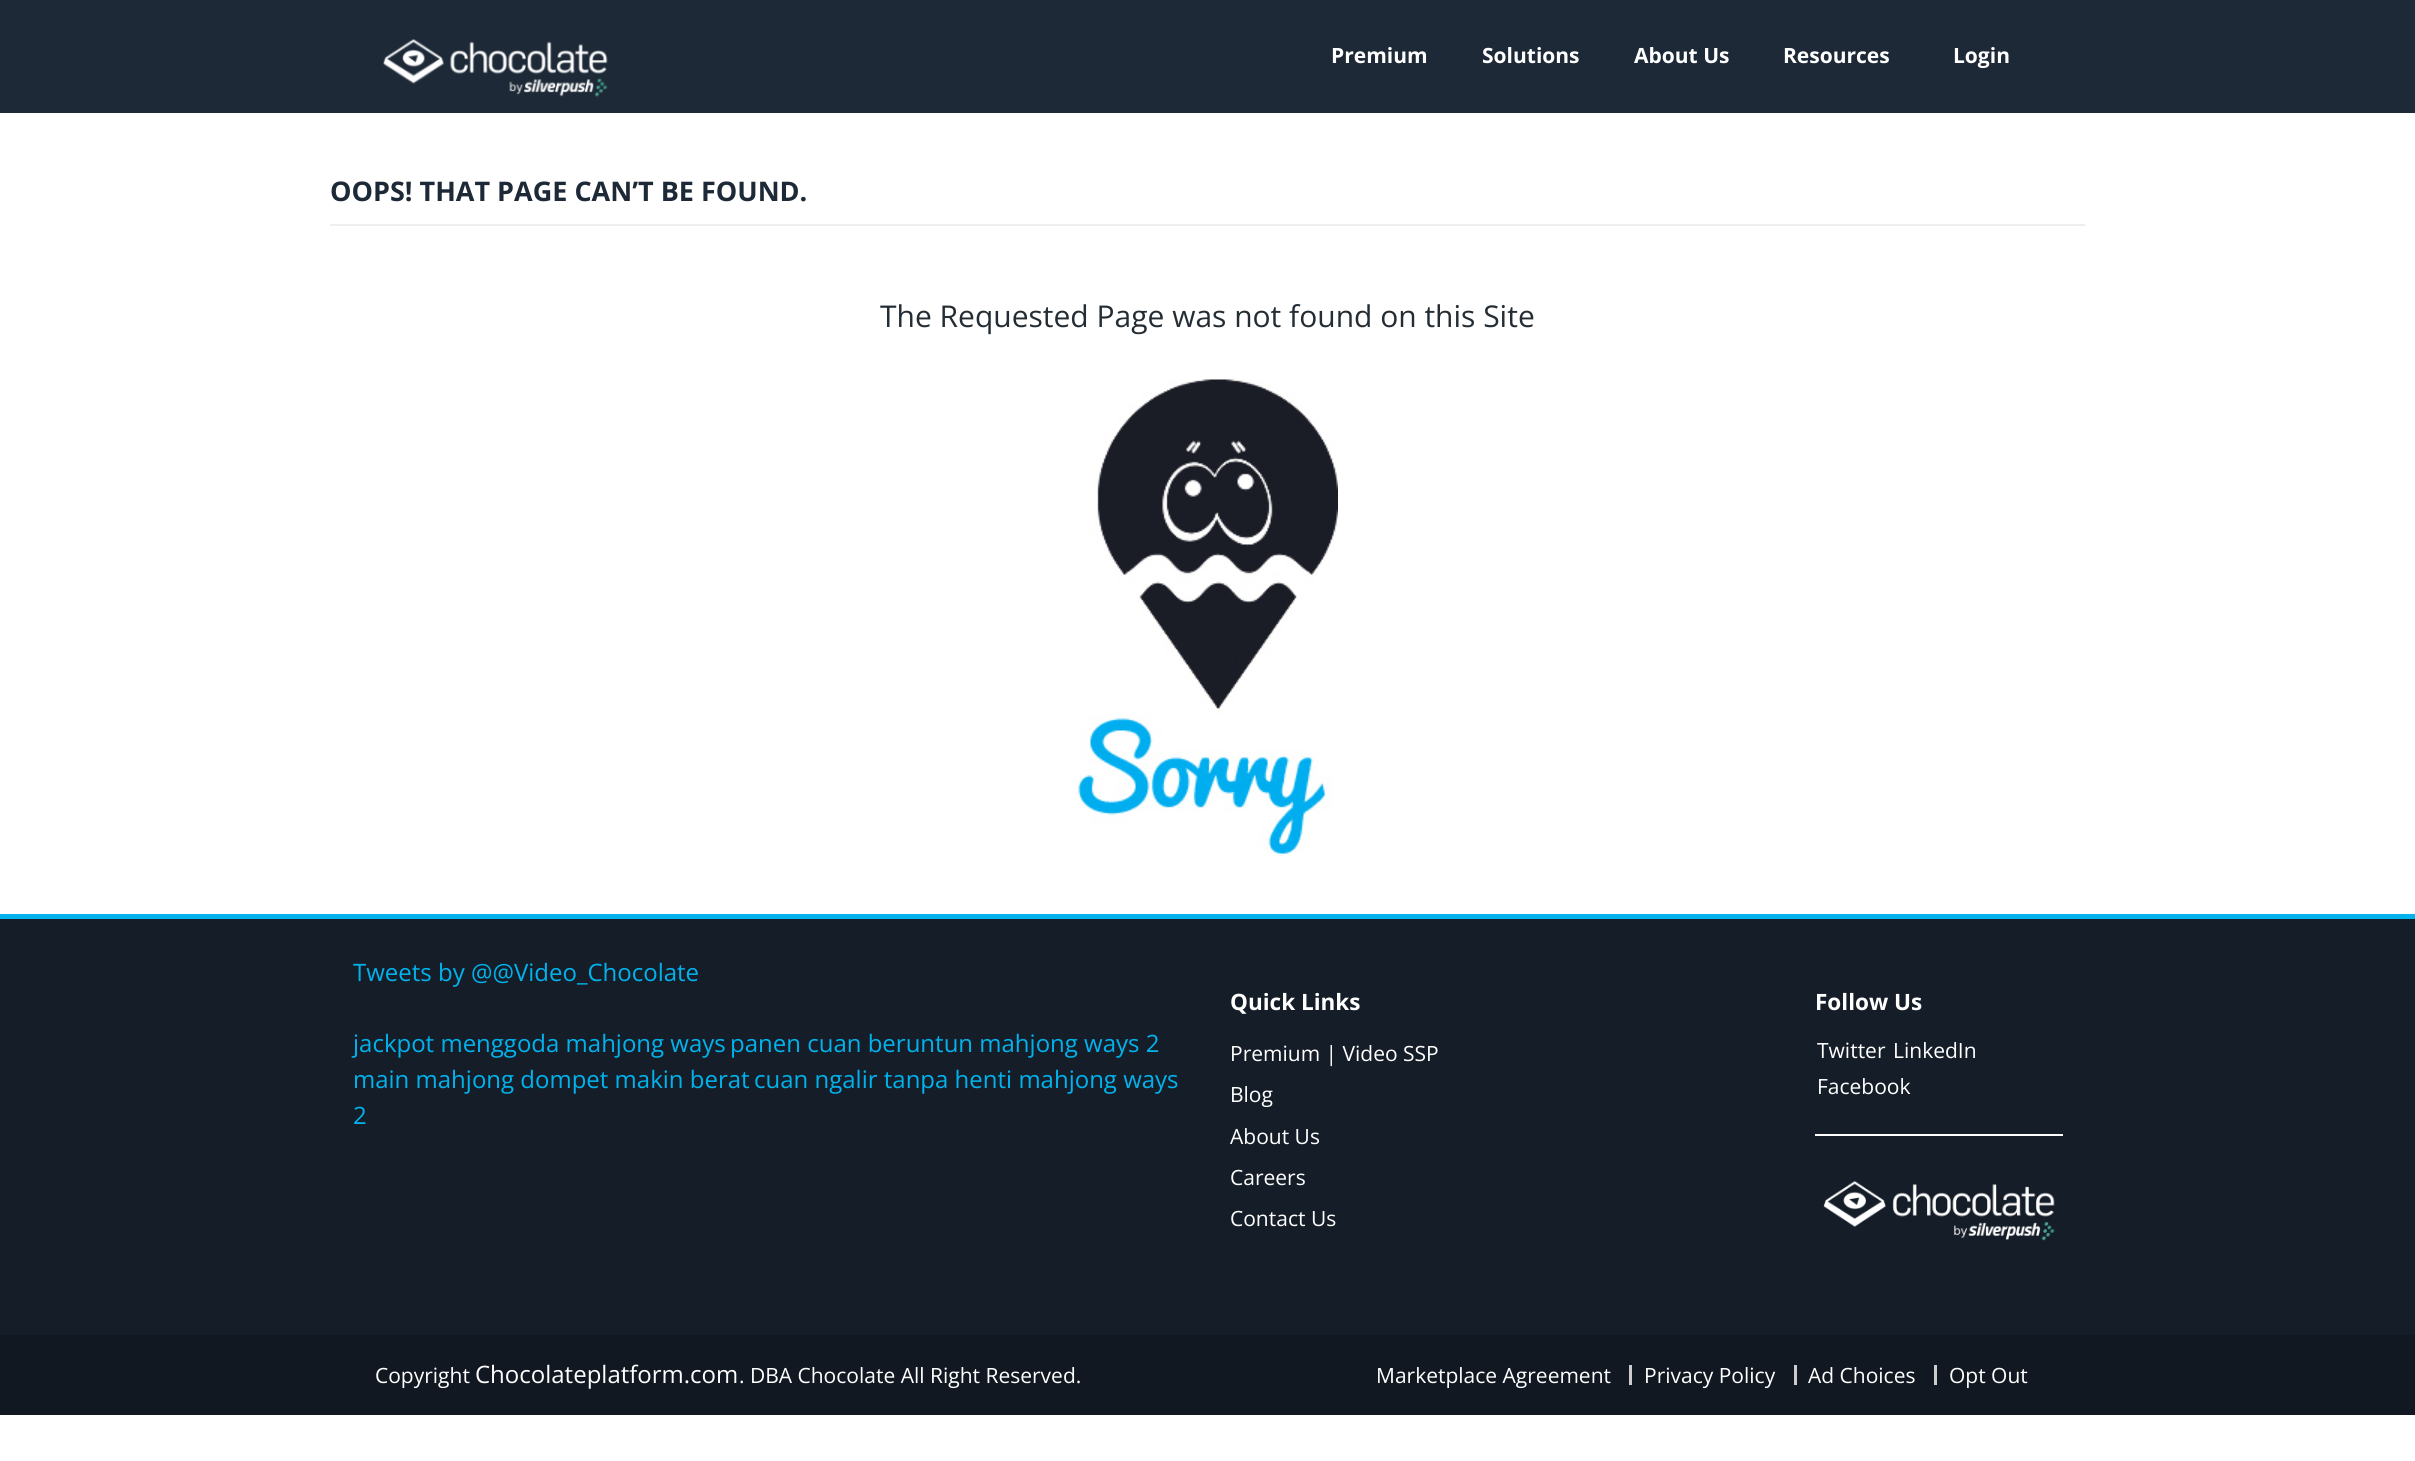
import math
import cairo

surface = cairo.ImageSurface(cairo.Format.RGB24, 2415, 1461)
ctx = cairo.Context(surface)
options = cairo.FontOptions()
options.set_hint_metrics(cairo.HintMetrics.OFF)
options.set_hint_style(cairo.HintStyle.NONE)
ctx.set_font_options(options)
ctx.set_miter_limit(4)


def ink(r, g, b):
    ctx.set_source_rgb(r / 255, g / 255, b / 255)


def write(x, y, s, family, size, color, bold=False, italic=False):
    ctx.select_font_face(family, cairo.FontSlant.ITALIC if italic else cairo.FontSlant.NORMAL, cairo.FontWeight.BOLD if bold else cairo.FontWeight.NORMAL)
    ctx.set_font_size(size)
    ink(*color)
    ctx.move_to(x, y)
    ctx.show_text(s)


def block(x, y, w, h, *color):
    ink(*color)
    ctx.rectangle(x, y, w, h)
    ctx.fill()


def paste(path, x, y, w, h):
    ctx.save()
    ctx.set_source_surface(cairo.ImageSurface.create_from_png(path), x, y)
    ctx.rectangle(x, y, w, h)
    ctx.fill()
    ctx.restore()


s1 = dict(family="Open Sans", size=21, color=(255, 255, 255), bold=True)
s2 = dict(family="Open Sans", size=27, color=(29, 41, 55), bold=True)
s3 = dict(family="Open Sans", size=30, color=(36, 45, 52))
s4 = dict(family="Open Sans", size=24, color=(1, 178, 236))
s5 = dict(family="Open Sans", size=22.5, color=(255, 255, 255), bold=True)
s6 = dict(family="Open Sans", size=21, color=(255, 255, 255))
s7 = dict(family="Open Sans", size=24, color=(255, 255, 255))

ink(255, 255, 255)
ctx.paint()
block(0, 0, 2415, 113, 29, 41, 55)
paste("pic1.png", 383, 39, 225, 58)
write(1331, 63, "Premium", **s1)
write(1482, 63, "Solutions", **s1)
write(1634, 63, "About Us", **s1)
write(1783, 63, "Resources", **s1)
write(1953, 63, "Login", **s1)
block(330, 224, 1755, 2, 238, 238, 238)
write(330, 201, "OOPS! THAT PAGE CAN’T BE FOUND.", **s2)
write(880, 327, "The Requested Page was not found on this Site", **s3)
paste("pic2.png", 1078, 379, 260, 475)
block(0, 919, 2415, 416, 21, 29, 40)
block(0, 914, 2415, 5, 1, 178, 236)
write(353, 981, "Tweets by @@Video_Chocolate", **s4)
write(353, 1052, "jackpot menggoda mahjong ways", **s4)
write(730, 1052, "panen cuan beruntun mahjong ways 2", **s4)
write(353, 1088, "main mahjong dompet makin berat", **s4)
write(754, 1088, "cuan ngalir tanpa henti mahjong ways", **s4)
write(353, 1124, "2", **s4)
write(1230, 1010, "Quick Links", **s5)
write(1230, 1061, "Premium | Video SSP", **s6)
write(1230, 1102, "Blog", **s6)
write(1230, 1144, "About Us", **s6)
write(1230, 1185, "Careers", **s6)
write(1230, 1226, "Contact Us", **s6)
write(1815, 1010, "Follow Us", **s5)
block(1815, 1134, 248, 2, 255, 255, 255)
write(1817, 1058, "Twitter", **s6)
write(1893, 1058, "LinkedIn", **s6)
write(1817, 1094, "Facebook", **s6)
paste("pic3.png", 1823, 1180, 232, 61)
block(0, 1335, 2415, 80, 17, 24, 34)
write(375, 1383, "Copyright", **s6)
write(475, 1383, "Chocolateplatform.com", **s7)
write(739, 1383, ". DBA Chocolate All Right Reserved.", **s6)
write(1376, 1383, "Marketplace Agreement", **s6)
block(1629, 1365, 3, 20, 204, 204, 204)
write(1644, 1383, "Privacy Policy", **s6)
block(1794, 1365, 3, 20, 204, 204, 204)
write(1808, 1383, "Ad Choices", **s6)
block(1934, 1365, 3, 20, 204, 204, 204)
write(1949, 1383, "Opt Out", **s6)
surface.write_to_png("screenshot.png")
